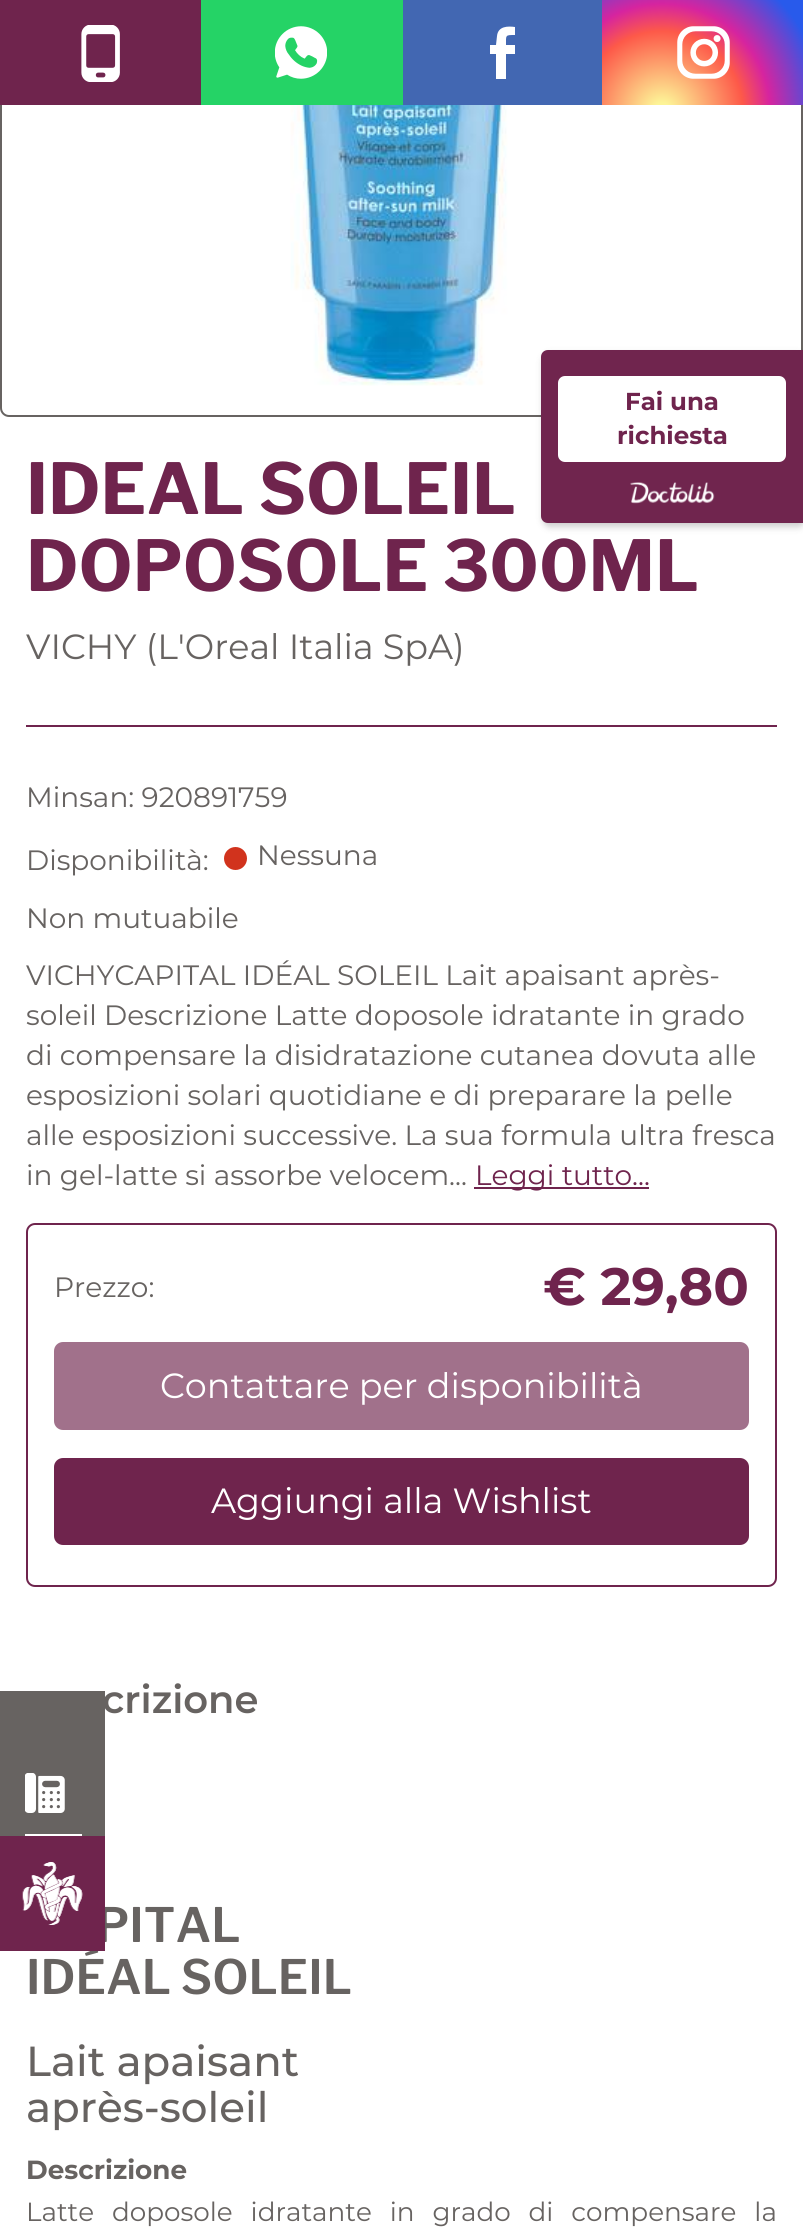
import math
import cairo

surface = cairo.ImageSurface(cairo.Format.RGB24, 803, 2231)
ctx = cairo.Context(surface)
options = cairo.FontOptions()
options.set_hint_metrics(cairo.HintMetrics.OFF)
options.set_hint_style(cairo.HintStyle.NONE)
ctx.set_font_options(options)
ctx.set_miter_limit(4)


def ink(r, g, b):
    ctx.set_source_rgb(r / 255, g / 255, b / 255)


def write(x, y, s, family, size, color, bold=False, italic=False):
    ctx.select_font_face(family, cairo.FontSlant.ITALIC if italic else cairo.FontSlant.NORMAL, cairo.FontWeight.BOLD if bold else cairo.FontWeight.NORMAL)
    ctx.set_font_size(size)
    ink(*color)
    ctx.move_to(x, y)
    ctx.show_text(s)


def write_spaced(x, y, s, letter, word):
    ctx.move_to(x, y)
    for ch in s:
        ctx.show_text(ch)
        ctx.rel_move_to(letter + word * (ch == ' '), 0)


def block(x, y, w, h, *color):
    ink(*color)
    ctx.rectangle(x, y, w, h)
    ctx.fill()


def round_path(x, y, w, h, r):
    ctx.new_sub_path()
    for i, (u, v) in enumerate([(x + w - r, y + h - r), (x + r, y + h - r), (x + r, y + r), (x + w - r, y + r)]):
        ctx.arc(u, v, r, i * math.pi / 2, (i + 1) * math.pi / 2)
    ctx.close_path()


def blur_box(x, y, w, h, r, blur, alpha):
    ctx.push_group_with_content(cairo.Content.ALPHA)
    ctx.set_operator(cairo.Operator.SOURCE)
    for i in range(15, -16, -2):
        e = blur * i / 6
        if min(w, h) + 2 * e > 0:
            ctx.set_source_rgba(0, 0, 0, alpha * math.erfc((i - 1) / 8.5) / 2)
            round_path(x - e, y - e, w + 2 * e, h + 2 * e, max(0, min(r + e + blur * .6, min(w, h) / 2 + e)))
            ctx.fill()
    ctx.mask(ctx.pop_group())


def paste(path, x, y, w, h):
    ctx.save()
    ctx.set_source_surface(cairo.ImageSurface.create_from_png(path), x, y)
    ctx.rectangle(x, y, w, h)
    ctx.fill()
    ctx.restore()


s1 = dict(family="Montserrat", size=24.5, color=(111, 36, 77), bold=True)
s2 = dict(family="Libre Franklin Thin", size=70, color=(111, 36, 77))
s3 = dict(family="Montserrat", size=35, color=(103, 99, 97))
s4 = dict(family="Montserrat", size=28, color=(103, 99, 97))
s5 = dict(family="Montserrat", size=28, color=(111, 36, 77))
s6 = dict(family="Montserrat", size=52.5, color=(111, 36, 77), bold=True)
s7 = dict(family="Montserrat", size=35, color=(255, 255, 255))
s8 = dict(family="Montserrat SemiBold", size=38.5, color=(103, 99, 97))
s9 = dict(family="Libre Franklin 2 Thin", size=47.25, color=(103, 99, 97))
s10 = dict(family="Montserrat Medium", size=42, color=(103, 99, 97))
s11 = dict(family="Montserrat", size=26.25, color=(103, 99, 97), bold=True)

ink(255, 255, 255)
ctx.paint()
round_path(1, -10, 801, 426, 8)
ink(103, 99, 97)
ctx.stroke()
block(0, 0, 201, 105, 111, 36, 77)
paste("pic1.png", 81, 25, 39, 57)
block(201, 0, 202, 105, 37, 211, 102)
paste("pic2.png", 275, 26, 52, 53)
block(403, 0, 199, 105, 66, 103, 178)
ink(255, 255, 255)
ctx.new_path()
ctx.move_to(496, 79)
ctx.line_to(496, 54)
ctx.line_to(490, 54)
ctx.line_to(490, 45)
ctx.line_to(496, 45)
ctx.line_to(497, 36)
ctx.curve_to(498, 26, 508, 26, 515, 27)
ctx.line_to(515, 35)
ctx.curve_to(505, 35, 506, 35, 506, 45)
ctx.line_to(515, 45)
ctx.line_to(515, 54)
ctx.line_to(506, 54)
ctx.line_to(506, 79)
ctx.line_to(496, 79)
ctx.fill()
gradient = cairo.RadialGradient(662, 112, 0, 662, 112, 180)
gradient.add_color_stop_rgba(0, 0.992, 0.957, 0.592, 1)
gradient.add_color_stop_rgba(0.05, 0.992, 0.957, 0.592, 1)
gradient.add_color_stop_rgba(0.45, 0.992, 0.349, 0.286, 1)
gradient.add_color_stop_rgba(0.6, 0.839, 0.141, 0.624, 1)
gradient.add_color_stop_rgba(0.9, 0.157, 0.353, 0.922, 1)
ctx.set_source(gradient)
ctx.rectangle(602, 0, 201, 105)
ctx.fill()
paste("pic3.png", 677, 26, 53, 53)
ink(0, 0, 0)
blur_box(543, 354, 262, 173, 7, 3.5, 0.2)
ink(112, 37, 78)
ctx.new_path()
ctx.move_to(548, 350)
ctx.line_to(803, 350)
ctx.line_to(803, 523)
ctx.line_to(548, 523)
ctx.curve_to(544, 523, 541, 520, 541, 516)
ctx.line_to(541, 357)
ctx.curve_to(541, 353, 544, 350, 548, 350)
ctx.close_path()
ctx.fill()
ink(255, 255, 255)
round_path(558, 376, 228, 86, 7)
ctx.fill()
write(625, 410, "Fai una", **s1)
write(617, 444, "richiesta", **s1)
paste("pic4.png", 630, 482, 85, 22)
paste("pic5.png", 290, 105, 240, 281)
block(26, 725, 751, 2, 111, 36, 77)
write(26, 514, "IDEAL SOLEIL", **s2)
write(26, 591, "DOPOSOLE 300ML", **s2)
write(26, 659, "VICHY (L'Oreal Italia SpA)", **s3)
write(26, 807, "Minsan: 920891759", **s4)
write(26, 870, "Disponibilità:", **s4)
ink(209, 51, 29)
ctx.new_path()
ctx.arc(235.5, 858.5, 11.5, 0, 2 * math.pi)
ctx.fill()
write(257, 865, "Nessuna", **s4)
write(26, 928, "Non mutuabile", **s4)
write(26, 985, "VICHYCAPITAL IDÉAL SOLEIL Lait apaisant après-", **s4)
write(26, 1025, "soleil Descrizione Latte doposole idratante in grado", **s4)
write(26, 1065, "di compensare la disidratazione cutanea dovuta alle", **s4)
write(26, 1105, "esposizioni solari quotidiane e di preparare la pelle", **s4)
write(26, 1145, "alle esposizioni successive. La sua formula ultra fresca", **s4)
write(26, 1185, "in gel-latte si assorbe velocem...", **s4)
block(474, 1187, 175, 2, 111, 36, 77)
write(475, 1185, "Leggi tutto...", **s5)
round_path(27, 1224, 749, 362, 8)
ctx.stroke()
write(54, 1297, "Prezzo:", **s4)
write(543, 1305, "€ 29,80", **s6)
ink(161, 113, 139)
round_path(55, 1343, 693, 86, 8)
ctx.fill_preserve()
ctx.stroke()
write(160, 1398, "Contattare per disponibilità", **s7)
ink(111, 36, 77)
round_path(54, 1458, 695, 87, 9)
ctx.fill()
write(211, 1513, "Aggiungi alla Wishlist", **s7)
write(102, 1713, "crizione", **s8)
write(96, 1942, "PITAL", **s9)
write(26, 1994, "IDÉAL SOLEIL", **s9)
write(26, 2076, "Lait apaisant", **s10)
write(26, 2122, "après-soleil", **s10)
write(26, 2179, "Descrizione", **s11)
ctx.select_font_face("Montserrat")
write_spaced(26, 2221, "Latte doposole idratante in grado di compensare la", 0, 11)
block(0, 1691, 105, 145, 103, 99, 97)
block(25, 1834, 57, 2, 255, 255, 255)
paste("pic6.png", 25, 1773, 40, 40)
block(0, 1836, 105, 115, 111, 36, 77)
paste("pic7.png", 22, 1862, 61, 63)
surface.write_to_png("screenshot.png")
